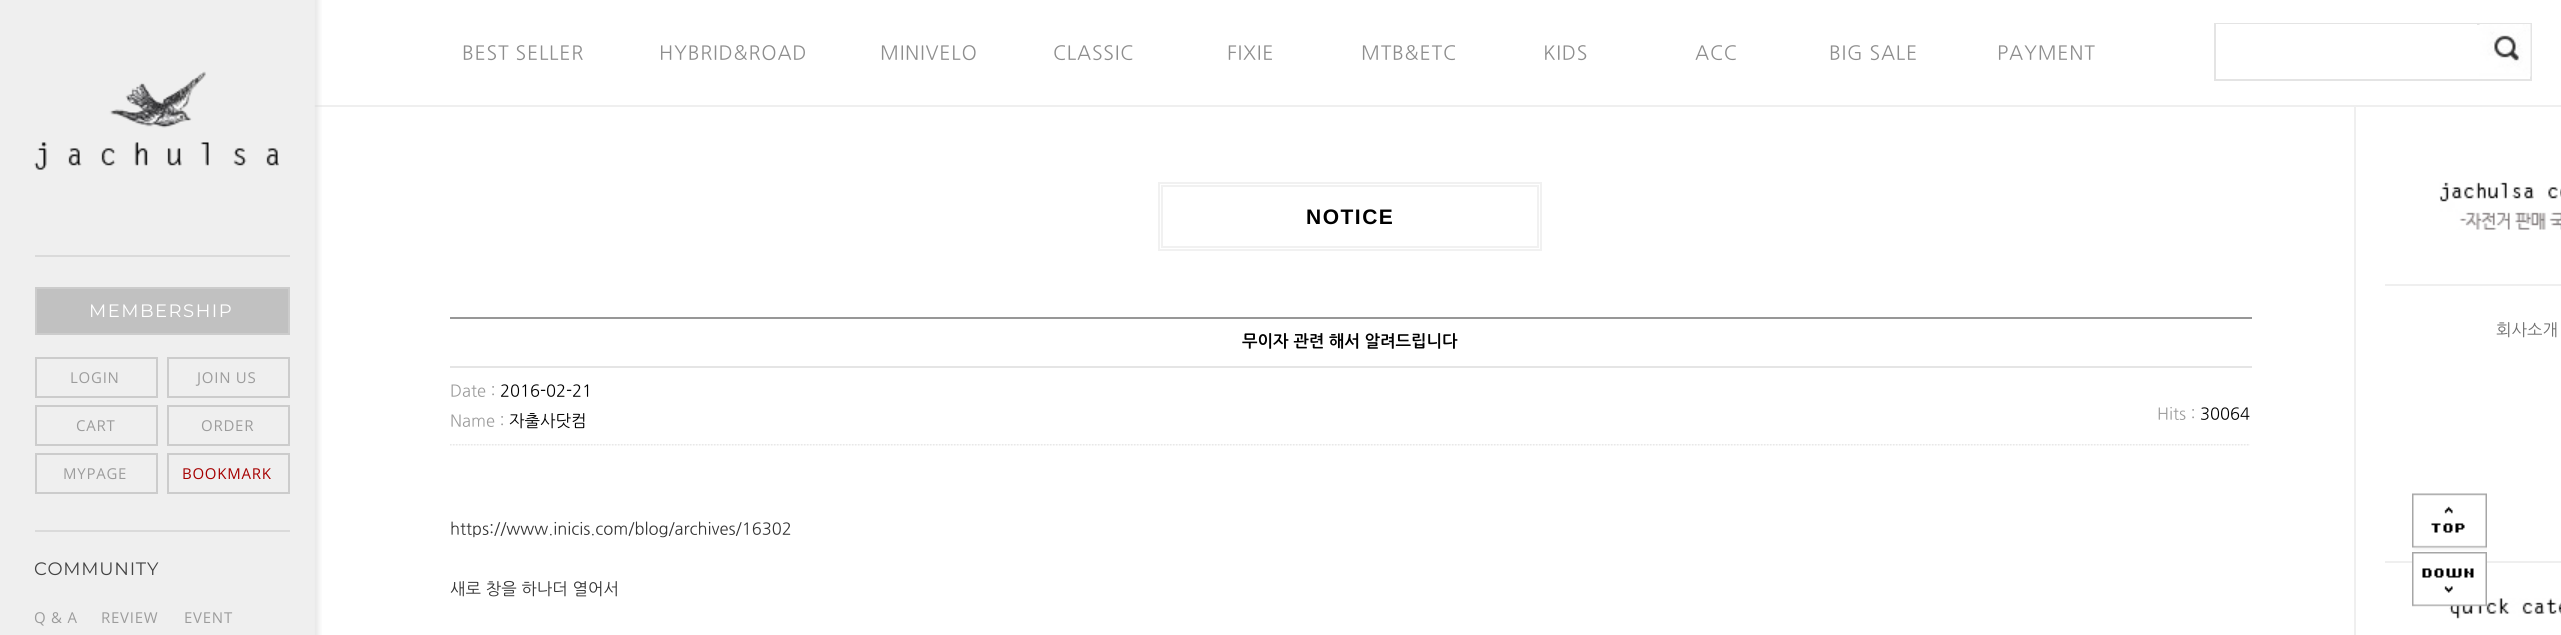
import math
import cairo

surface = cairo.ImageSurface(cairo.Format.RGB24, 2561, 635)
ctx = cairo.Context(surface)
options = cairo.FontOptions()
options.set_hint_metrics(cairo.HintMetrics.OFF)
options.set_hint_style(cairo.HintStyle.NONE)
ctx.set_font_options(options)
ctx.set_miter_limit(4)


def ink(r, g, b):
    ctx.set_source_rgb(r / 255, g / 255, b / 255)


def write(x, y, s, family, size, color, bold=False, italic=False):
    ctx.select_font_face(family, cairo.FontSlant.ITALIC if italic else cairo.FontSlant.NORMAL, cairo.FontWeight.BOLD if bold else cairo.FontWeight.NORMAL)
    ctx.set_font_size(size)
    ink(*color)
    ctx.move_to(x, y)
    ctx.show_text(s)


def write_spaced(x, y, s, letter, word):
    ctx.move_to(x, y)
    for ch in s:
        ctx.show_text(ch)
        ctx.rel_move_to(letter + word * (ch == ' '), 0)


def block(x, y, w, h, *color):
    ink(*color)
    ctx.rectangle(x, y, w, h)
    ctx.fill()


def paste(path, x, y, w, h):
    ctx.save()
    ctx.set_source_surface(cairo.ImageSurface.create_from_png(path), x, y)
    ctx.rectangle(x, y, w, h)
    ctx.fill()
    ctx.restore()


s1 = dict(family="NanumGothic", size=16.5, color=(0, 0, 0), bold=True)
s2 = dict(family="NanumGothic", size=16.5, color=(156, 156, 156))
s3 = dict(family="NanumGothic", size=16.5, color=(0, 0, 0))
s4 = dict(family="NanumGothic", size=16.5, color=(51, 51, 51))
s5 = dict(family="NanumGothic", size=16.5, color=(109, 109, 109))

ink(255, 255, 255)
ctx.paint()
block(314, 105, 2247, 2, 239, 239, 239)
ctx.select_font_face("NanumGothic")
ctx.set_font_size(19.5)
ink(142, 142, 142)
write_spaced(462, 59, "BEST SELLER", 0.75, 0)
write_spaced(659, 59, "HYBRID&ROAD", 0.75, 0)
write_spaced(880, 59, "MINIVELO", 0.75, 0)
write_spaced(1053, 59, "CLASSIC", 0.75, 0)
write_spaced(1227, 59, "FIXIE", 0.75, 0)
write_spaced(1361, 59, "MTB&ETC", 0.75, 0)
write_spaced(1543, 59, "KIDS", 0.75, 0)
write_spaced(1695, 59, "ACC", 0.75, 0)
write_spaced(1829, 59, "BIG SALE", 0.75, 0)
write_spaced(1997, 59, "PAYMENT", 0.75, 0)
ctx.rectangle(2215, 24, 316, 56)
ink(228, 228, 228)
ctx.stroke()
block(2216, 24, 261, 1, 255, 255, 255)
paste("pic1.png", 2479, 24, 52, 53)
paste("pic2.png", 0, 0, 322, 635)
paste("pic3.png", 34, 71, 245, 99)
block(35, 255, 255, 2, 218, 218, 218)
ink(193, 193, 193)
ctx.rectangle(36, 288, 253, 46)
ctx.fill_preserve()
ink(204, 204, 204)
ctx.stroke()
ctx.select_font_face("Montserrat")
ctx.set_font_size(18)
ink(255, 255, 255)
write_spaced(89, 317, "MEMBERSHIP", 1.5, 0)
ctx.rectangle(36, 358, 121, 39)
ink(204, 204, 204)
ctx.stroke()
ctx.select_font_face("Open Sans")
ctx.set_font_size(15)
ink(156, 156, 156)
write_spaced(70, 383, "LOGIN", 0.75, 0)
ctx.rectangle(168, 358, 121, 39)
ink(204, 204, 204)
ctx.stroke()
ink(156, 156, 156)
write_spaced(197, 383, "JOIN US", 0.75, 0)
ctx.rectangle(36, 406, 121, 39)
ink(204, 204, 204)
ctx.stroke()
ink(156, 156, 156)
write_spaced(76, 431, "CART", 0.75, 0)
ctx.rectangle(168, 406, 121, 39)
ink(204, 204, 204)
ctx.stroke()
ink(156, 156, 156)
write_spaced(201, 431, "ORDER", 0.75, 0)
ctx.rectangle(36, 454, 121, 39)
ink(204, 204, 204)
ctx.stroke()
ink(156, 156, 156)
write_spaced(63, 479, "MYPAGE", 0.75, 0)
ctx.rectangle(168, 454, 121, 39)
ink(204, 204, 204)
ctx.stroke()
ink(166, 0, 0)
write_spaced(182, 479, "BOOKMARK", 0.75, 0)
block(35, 530, 255, 2, 218, 218, 218)
ctx.select_font_face("Montserrat")
ctx.set_font_size(18)
ink(68, 68, 68)
write_spaced(34, 575, "COMMUNITY", 0.75, 0)
ctx.select_font_face("Open Sans")
ctx.set_font_size(15)
ink(156, 156, 156)
write_spaced(34, 623, "Q & A", 0.75, 0)
write_spaced(101, 623, "REVIEW", 0.75, 0)
write_spaced(184, 623, "EVENT", 0.75, 0)
ctx.rectangle(1159, 183, 382, 67)
ink(241, 241, 241)
ctx.stroke()
ctx.rectangle(1162, 186, 376, 61)
ctx.stroke()
ctx.select_font_face("Liberation Sans", cairo.FontSlant.NORMAL, cairo.FontWeight.BOLD)
ctx.set_font_size(21)
ink(0, 0, 0)
write_spaced(1306, 224, "NOTICE", 1.5, 0)
block(450, 317, 1802, 2, 151, 151, 151)
block(450, 366, 1802, 2, 229, 229, 229)
write(1242, 347, "무이자 관련 해서 알려드립니다", **s1)
paste("pic4.png", 450, 444, 1800, 2)
write(450, 396, "Date :", **s2)
write(500, 396, "2016-02-21", **s3)
write(450, 426, "Name :", **s2)
write(509, 426, "자출사닷컴", **s3)
write(2157, 419, "Hits :", **s2)
write(2200, 419, "30064", **s3)
write(450, 534, "https://www.inicis.com/blog/archives/16302", **s4)
write(450, 594, "새로 창을 하나더 열어서", **s4)
block(2354, 107, 2, 528, 239, 239, 239)
paste("pic5.png", 2439, 182, 122, 48)
block(2385, 284, 176, 2, 239, 239, 239)
write(2496, 335, "회사소개", **s5)
block(2385, 561, 176, 2, 239, 239, 239)
paste("pic6.png", 2449, 598, 112, 21)
paste("pic7.png", 2412, 493, 75, 58)
paste("pic8.png", 2412, 552, 75, 55)
surface.write_to_png("screenshot.png")
